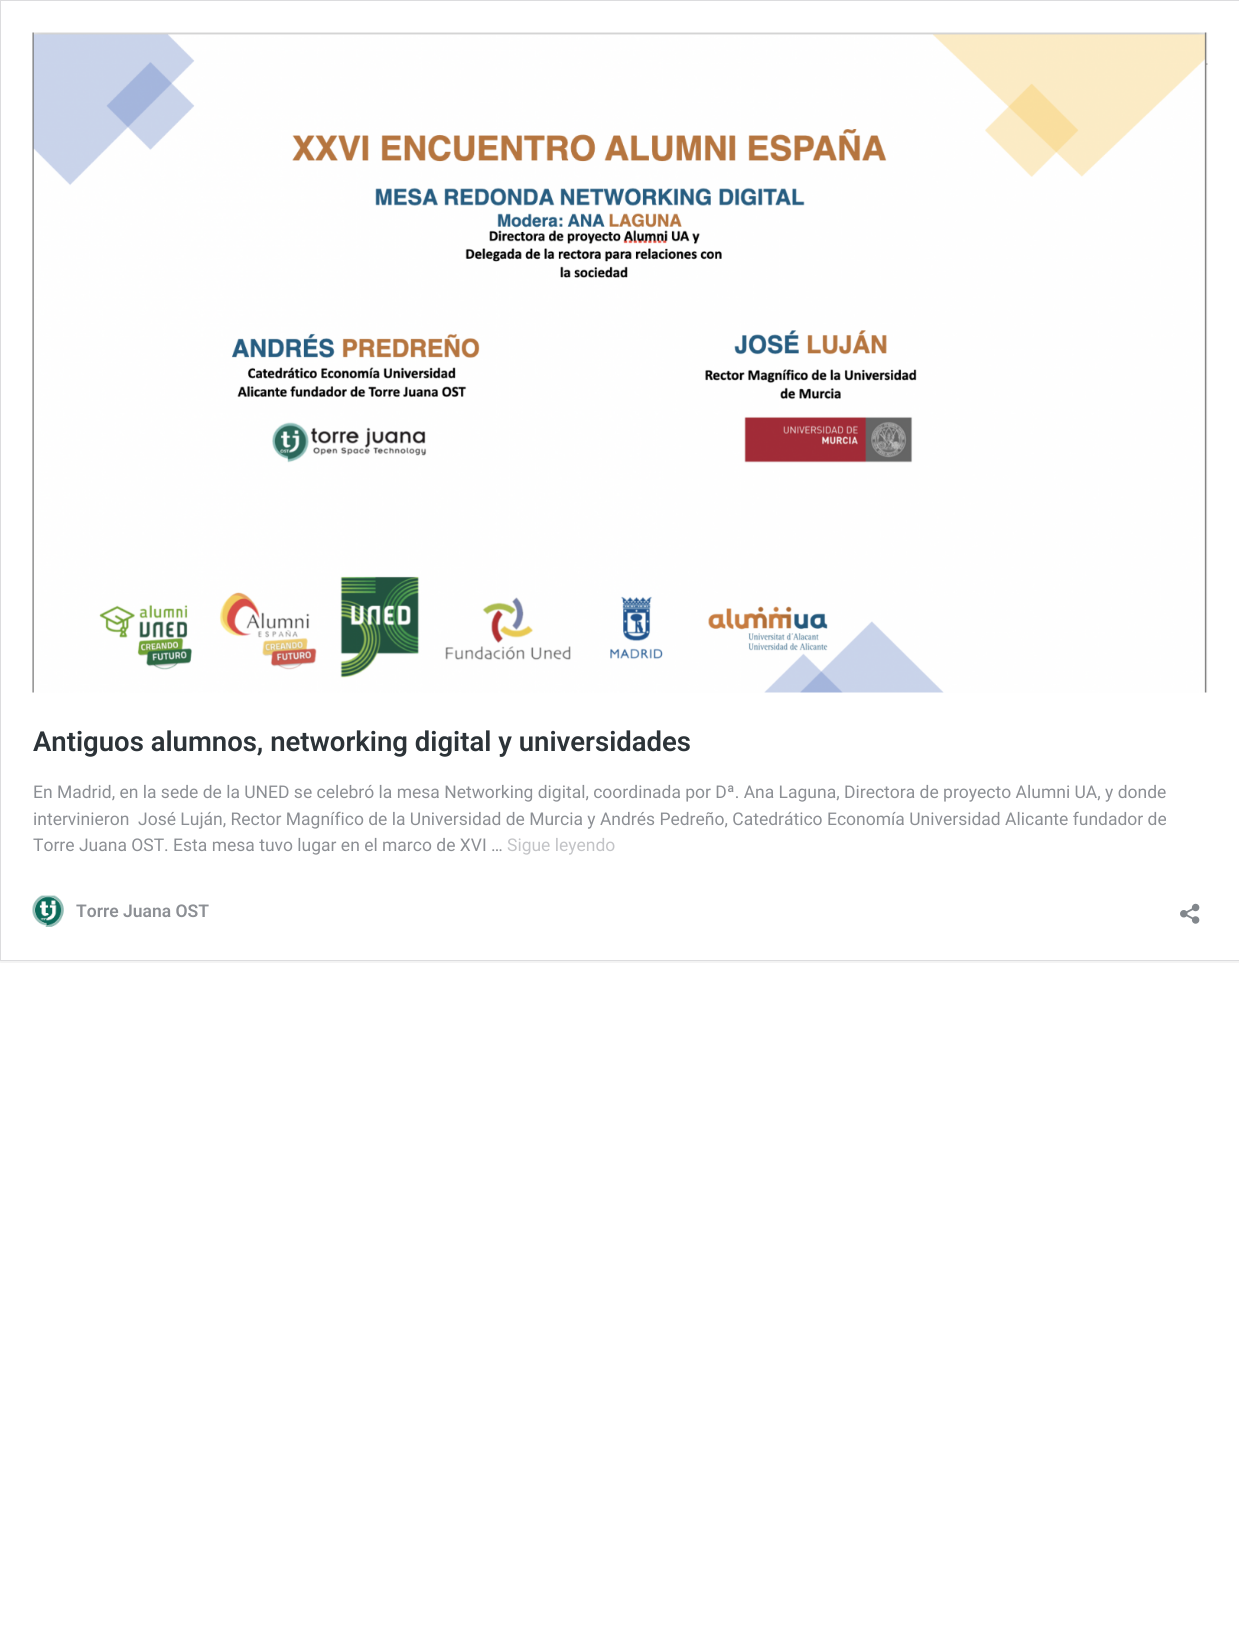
import math
import cairo

surface = cairo.ImageSurface(cairo.Format.RGB24, 1239, 1635)
ctx = cairo.Context(surface)
options = cairo.FontOptions()
options.set_hint_metrics(cairo.HintMetrics.OFF)
options.set_hint_style(cairo.HintStyle.NONE)
ctx.set_font_options(options)
ctx.set_miter_limit(4)


def ink(r, g, b):
    ctx.set_source_rgb(r / 255, g / 255, b / 255)


def write(x, y, s, family, size, color, bold=False, italic=False):
    ctx.select_font_face(family, cairo.FontSlant.ITALIC if italic else cairo.FontSlant.NORMAL, cairo.FontWeight.BOLD if bold else cairo.FontWeight.NORMAL)
    ctx.set_font_size(size)
    ink(*color)
    ctx.move_to(x, y)
    ctx.show_text(s)


def round_path(x, y, w, h, r):
    ctx.new_sub_path()
    for i, (u, v) in enumerate([(x + w - r, y + h - r), (x + r, y + h - r), (x + r, y + r), (x + w - r, y + r)]):
        ctx.arc(u, v, r, i * math.pi / 2, (i + 1) * math.pi / 2)
    ctx.close_path()


def blur_box(x, y, w, h, r, blur, alpha):
    ctx.push_group_with_content(cairo.Content.ALPHA)
    ctx.set_operator(cairo.Operator.SOURCE)
    for i in range(15, -16, -2):
        e = blur * i / 6
        if min(w, h) + 2 * e > 0:
            ctx.set_source_rgba(0, 0, 0, alpha * math.erfc((i - 1) / 8.5) / 2)
            round_path(x - e, y - e, w + 2 * e, h + 2 * e, max(0, min(r + e + blur * .6, min(w, h) / 2 + e)))
            ctx.fill()
    ctx.mask(ctx.pop_group())


def paste(path, x, y, w, h):
    ctx.save()
    ctx.set_source_surface(cairo.ImageSurface.create_from_png(path), x, y)
    ctx.rectangle(x, y, w, h)
    ctx.fill()
    ctx.restore()


s1 = dict(family="Roboto SemiBold", size=27.5, color=(44, 51, 56))
s2 = dict(family="Roboto", size=17.5, color=(140, 143, 148))
s3 = dict(family="Roboto", size=17.5, color=(195, 196, 199))
s4 = dict(family="Roboto SemiBold", size=17.5, color=(140, 143, 148))

ink(255, 255, 255)
ctx.paint()
ctx.save()
ctx.rectangle(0, 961, 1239, 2)
ctx.clip()
ink(0, 0, 0)
blur_box(0, 1, 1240, 962, 0, 0.5, 0.05)
ctx.restore()
ctx.rectangle(0.5, 0.5, 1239, 960)
ink(220, 220, 222)
ctx.set_line_width(1)
ctx.stroke()
paste("pic1.png", 32, 32, 1176, 661)
write(33, 751, "Antiguos alumnos, networking digital y universidades", **s1)
write(33, 798, "En Madrid, en la sede de la UNED se celebró la mesa Networking digital, coordinada por Dª. Ana Laguna, Directora de proyecto Alumni UA, y donde", **s2)
write(33, 825, "intervinieron  José Luján, Rector Magnífico de la Universidad de Murcia y Andrés Pedreño, Catedrático Economía Universidad Alicante fundador de", **s2)
write(33, 851, "Torre Juana OST. Esta mesa tuvo lugar en el marco de XVI …", **s2)
write(507, 851, "Sigue leyendo", **s3)
paste("pic2.png", 32, 895, 32, 32)
write(76, 917, "Torre Juana OST", **s4)
paste("pic3.png", 1180, 903, 20, 21)
surface.write_to_png("screenshot.png")
